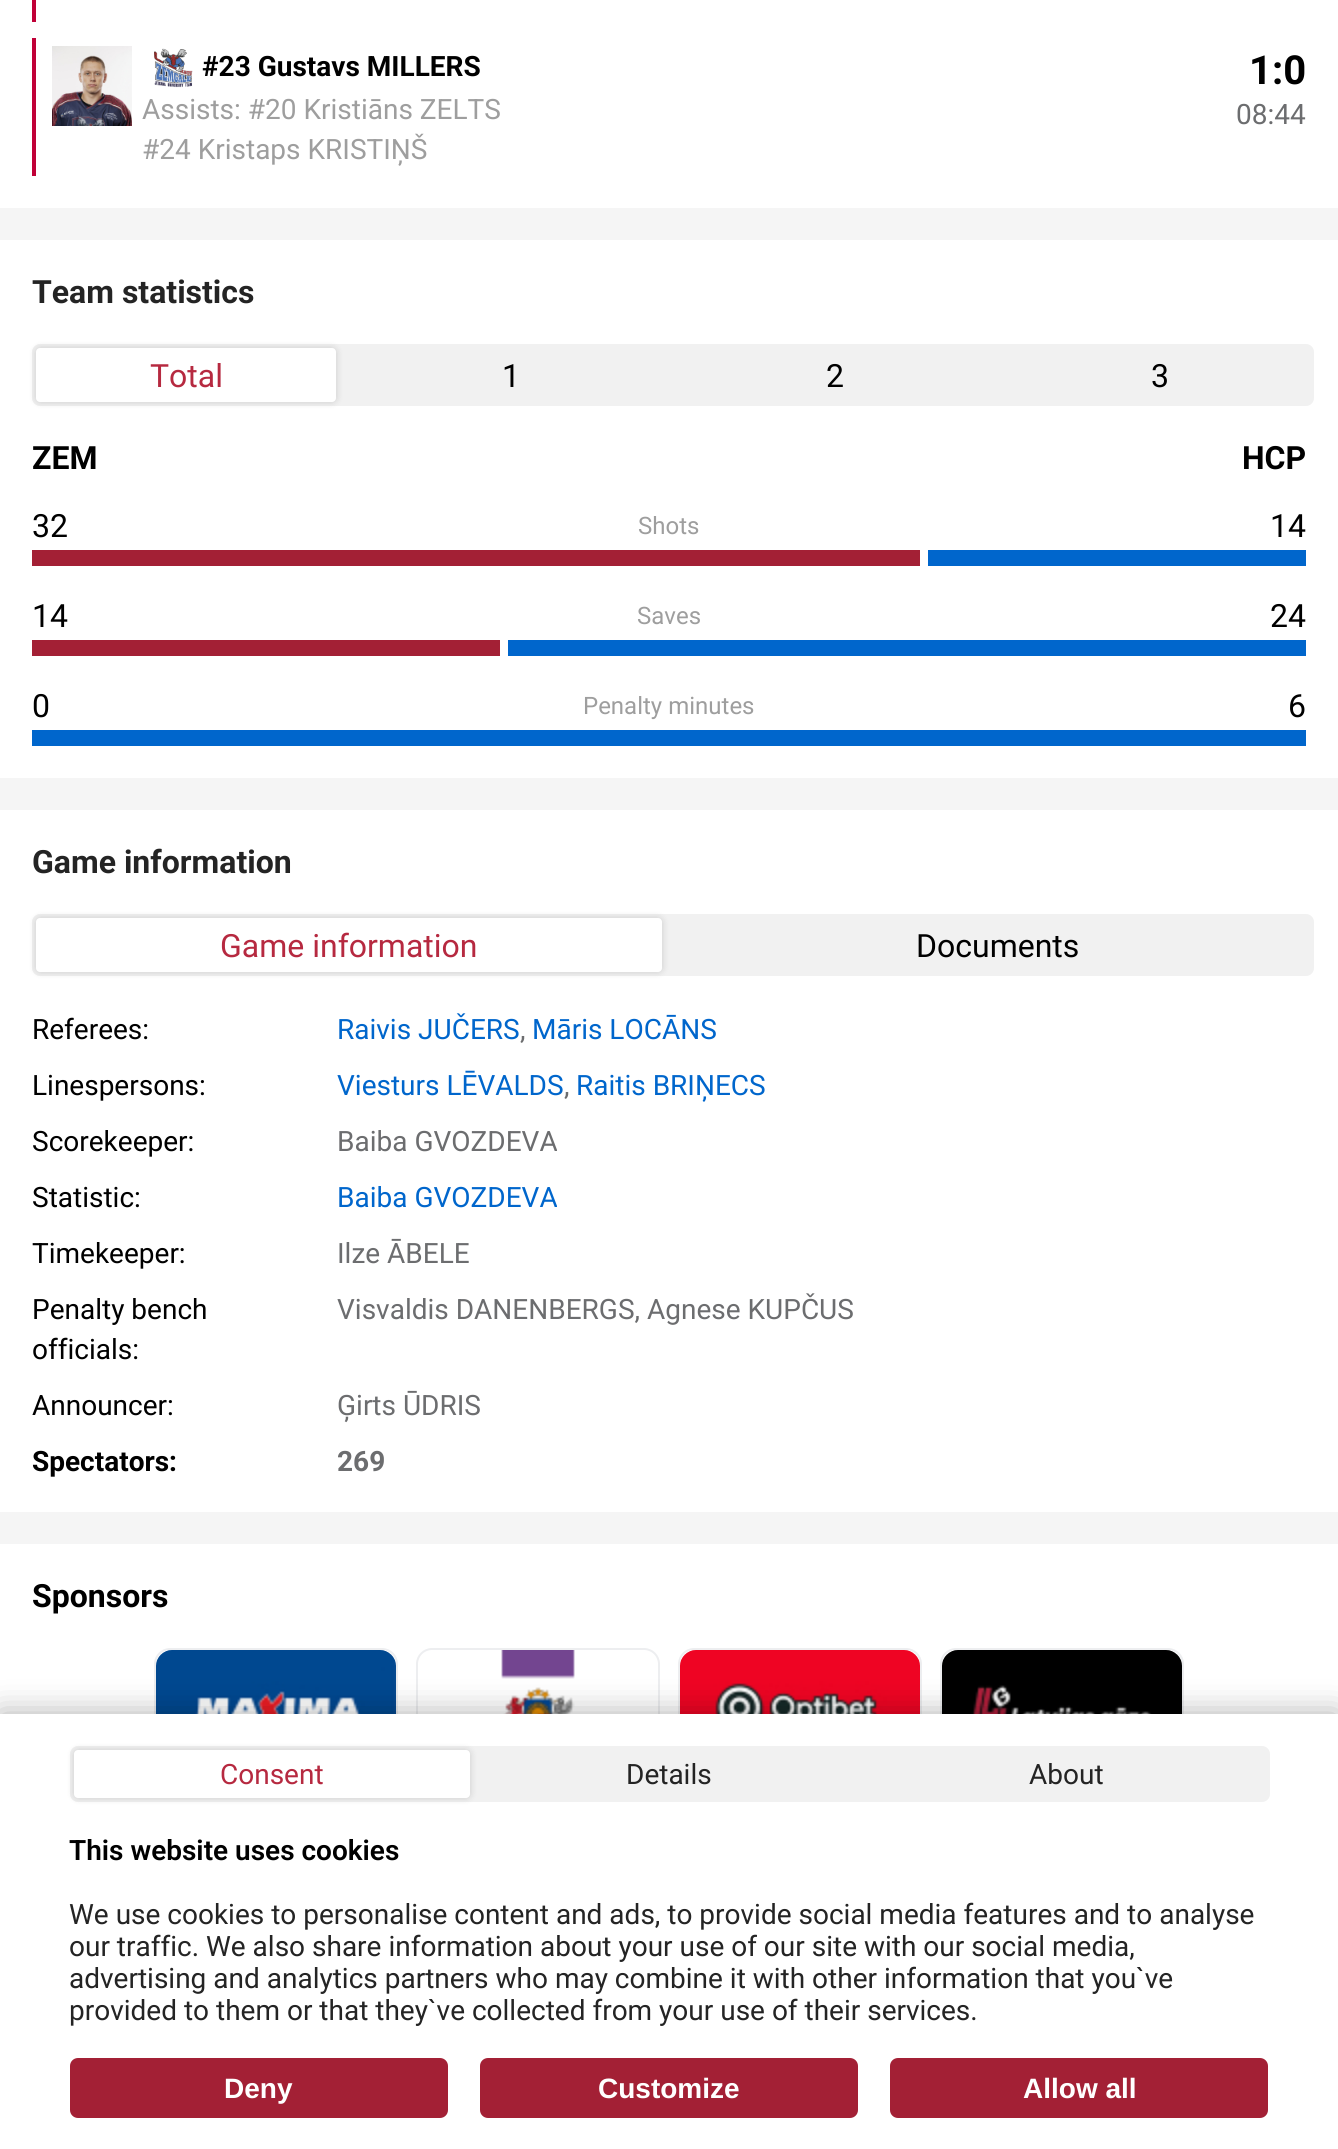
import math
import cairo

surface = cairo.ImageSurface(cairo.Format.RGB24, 1338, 2149)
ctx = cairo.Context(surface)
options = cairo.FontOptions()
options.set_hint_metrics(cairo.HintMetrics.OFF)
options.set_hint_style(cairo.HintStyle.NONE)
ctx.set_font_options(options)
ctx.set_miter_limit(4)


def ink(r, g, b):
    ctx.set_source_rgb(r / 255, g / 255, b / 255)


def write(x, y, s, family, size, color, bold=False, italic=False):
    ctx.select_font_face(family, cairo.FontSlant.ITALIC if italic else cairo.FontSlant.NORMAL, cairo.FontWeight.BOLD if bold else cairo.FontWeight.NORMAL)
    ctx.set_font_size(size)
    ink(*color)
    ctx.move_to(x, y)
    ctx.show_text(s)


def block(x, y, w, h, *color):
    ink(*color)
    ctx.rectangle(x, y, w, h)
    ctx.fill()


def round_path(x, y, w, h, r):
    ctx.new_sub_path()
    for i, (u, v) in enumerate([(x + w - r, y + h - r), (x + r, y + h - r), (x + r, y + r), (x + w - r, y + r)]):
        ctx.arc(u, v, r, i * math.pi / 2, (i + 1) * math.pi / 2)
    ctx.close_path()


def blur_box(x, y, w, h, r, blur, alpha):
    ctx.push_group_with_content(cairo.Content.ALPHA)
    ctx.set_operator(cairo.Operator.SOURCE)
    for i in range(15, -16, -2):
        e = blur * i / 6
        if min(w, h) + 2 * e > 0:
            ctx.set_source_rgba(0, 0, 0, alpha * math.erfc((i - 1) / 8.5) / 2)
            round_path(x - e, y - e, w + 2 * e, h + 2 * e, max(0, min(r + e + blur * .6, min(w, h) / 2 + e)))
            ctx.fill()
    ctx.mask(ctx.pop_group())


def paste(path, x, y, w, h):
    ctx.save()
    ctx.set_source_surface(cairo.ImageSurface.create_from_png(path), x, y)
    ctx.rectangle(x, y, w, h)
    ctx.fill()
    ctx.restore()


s1 = dict(family="Roboto", size=28, color=(0, 0, 0), bold=True)
s2 = dict(family="Roboto", size=28, color=(158, 158, 158))
s3 = dict(family="Roboto", size=40, color=(0, 0, 0), bold=True)
s4 = dict(family="Roboto", size=28, color=(108, 109, 111))
s5 = dict(family="Roboto", size=32, color=(36, 36, 36), bold=True)
s6 = dict(family="Roboto", size=32, color=(182, 41, 64))
s7 = dict(family="Roboto", size=32, color=(0, 0, 0))
s8 = dict(family="Roboto", size=32, color=(0, 0, 0), bold=True)
s9 = dict(family="Roboto", size=24, color=(158, 158, 158))
s10 = dict(family="Roboto", size=28, color=(0, 0, 0))
s11 = dict(family="Roboto", size=28, color=(0, 102, 204))
s12 = dict(family="Roboto", size=28, color=(108, 109, 111), bold=True)
s13 = dict(family="Roboto", size=28, color=(182, 41, 64))
s14 = dict(family="Roboto", size=28, color=(36, 36, 36))
s15 = dict(family="Roboto SemiBold", size=28, color=(0, 0, 0))
s16 = dict(family="Liberation Sans", size=28, color=(255, 255, 255), bold=True)

ink(245, 245, 245)
ctx.paint()
block(0, 0, 1338, 208, 255, 255, 255)
block(32, 0, 4, 22, 192, 0, 55)
block(32, 38, 4, 138, 192, 0, 55)
paste("pic1.png", 52, 46, 80, 80)
paste("pic2.png", 154, 48, 39, 40)
write(202, 76, "#23 Gustavs MILLERS", **s1)
write(142, 119, "Assists: #20 Kristiāns ZELTS", **s2)
write(142, 159, "#24 Kristaps KRISTIŅŠ", **s2)
write(1249, 84, "1:0", **s3)
write(1236, 124, "08:44", **s4)
block(0, 240, 1338, 538, 255, 255, 255)
write(32, 303, "Team statistics", **s5)
ink(241, 241, 241)
round_path(32, 344, 1282, 62, 8)
ctx.fill()
ink(0, 0, 0)
blur_box(36, 348, 300, 54, 4, 4, 0.16)
ink(255, 255, 255)
round_path(36, 348, 300, 54, 4)
ctx.fill()
write(150, 387, "Total", **s6)
write(502, 387, "1", **s7)
write(826, 387, "2", **s7)
write(1151, 387, "3", **s7)
write(32, 469, "ZEM", **s8)
write(1242, 469, "HCP", **s8)
write(32, 537, "32", **s7)
write(638, 534, "Shots", **s9)
write(1270, 537, "14", **s7)
block(32, 550, 888, 16, 163, 32, 53)
block(928, 550, 378, 16, 0, 102, 204)
write(32, 627, "14", **s7)
write(637, 624, "Saves", **s9)
write(1270, 627, "24", **s7)
block(32, 640, 468, 16, 163, 32, 53)
block(508, 640, 798, 16, 0, 102, 204)
write(32, 717, "0", **s7)
write(583, 714, "Penalty minutes", **s9)
write(1288, 717, "6", **s7)
block(32, 730, 1274, 16, 0, 102, 204)
block(0, 810, 1338, 702, 255, 255, 255)
write(32, 873, "Game information", **s5)
ink(241, 241, 241)
round_path(32, 914, 1282, 62, 8)
ctx.fill()
ink(0, 0, 0)
blur_box(36, 918, 626, 54, 4, 4, 0.16)
ink(255, 255, 255)
round_path(36, 918, 626, 54, 4)
ctx.fill()
write(220, 957, "Game information", **s6)
write(916, 957, "Documents", **s7)
write(32, 1039, "Referees:", **s10)
write(337, 1039, "Raivis JUČERS", **s11)
write(520, 1039, ",", **s4)
write(532, 1039, "Māris LOCĀNS", **s11)
write(32, 1095, "Linespersons:", **s10)
write(337, 1095, "Viesturs LĒVALDS", **s11)
write(564, 1095, ",", **s4)
write(576, 1095, "Raitis BRIŅECS", **s11)
write(32, 1151, "Scorekeeper:", **s10)
write(337, 1151, "Baiba GVOZDEVA", **s4)
write(32, 1207, "Statistic:", **s10)
write(337, 1207, "Baiba GVOZDEVA", **s11)
write(32, 1263, "Timekeeper:", **s10)
write(337, 1263, "Ilze ĀBELE", **s4)
write(32, 1319, "Penalty bench", **s10)
write(32, 1359, "officials:", **s10)
write(337, 1319, "Visvaldis DANENBERGS, Agnese KUPČUS", **s4)
write(32, 1415, "Announcer:", **s10)
write(337, 1415, "Ģirts ŪDRIS", **s4)
write(32, 1471, "Spectators:", **s1)
write(337, 1471, "269", **s12)
block(0, 1544, 1338, 170, 255, 255, 255)
write(32, 1607, "Sponsors", **s8)
round_path(155, 1649, 242, 122, 15)
ink(237, 238, 240)
ctx.stroke()
paste("pic3.png", 156, 1650, 240, 64)
round_path(417, 1649, 242, 122, 15)
ctx.stroke()
paste("pic4.png", 501, 1650, 74, 64)
round_path(679, 1649, 242, 122, 15)
ctx.stroke()
paste("pic5.png", 680, 1650, 240, 64)
round_path(941, 1649, 242, 122, 15)
ctx.stroke()
paste("pic6.png", 942, 1650, 240, 64)
ink(0, 0, 0)
blur_box(0, 1714, 1338, 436, 0, 16, 0.32)
block(0, 1714, 1338, 435, 255, 255, 255)
ink(241, 241, 241)
round_path(70, 1746, 1200, 56, 8)
ctx.fill()
ink(0, 0, 0)
blur_box(74, 1750, 396, 48, 4, 4, 0.16)
ink(255, 255, 255)
round_path(74, 1750, 396, 48, 4)
ctx.fill()
write(220, 1784, "Consent", **s13)
write(626, 1784, "Details", **s14)
write(1029, 1784, "About", **s14)
write(69, 1860, "This website uses cookies", **s15)
write(69, 1924, "We use cookies to personalise content and ads, to provide social media features and to analyse", **s14)
write(69, 1956, "our traffic. We also share information about your use of our site with our social media,", **s14)
write(69, 1988, "advertising and analytics partners who may combine it with other information that you`ve", **s14)
write(69, 2020, "provided to them or that they`ve collected from your use of their services.", **s14)
ink(163, 32, 53)
round_path(71, 2059, 376, 58, 7)
ctx.fill_preserve()
ctx.stroke()
write(224, 2098, "Deny", **s16)
ink(163, 32, 53)
round_path(481, 2059, 376, 58, 7)
ctx.fill_preserve()
ctx.stroke()
write(598, 2098, "Customize", **s16)
ink(163, 32, 53)
round_path(891, 2059, 376, 58, 7)
ctx.fill_preserve()
ctx.stroke()
write(1023, 2098, "Allow all", **s16)
surface.write_to_png("screenshot.png")
